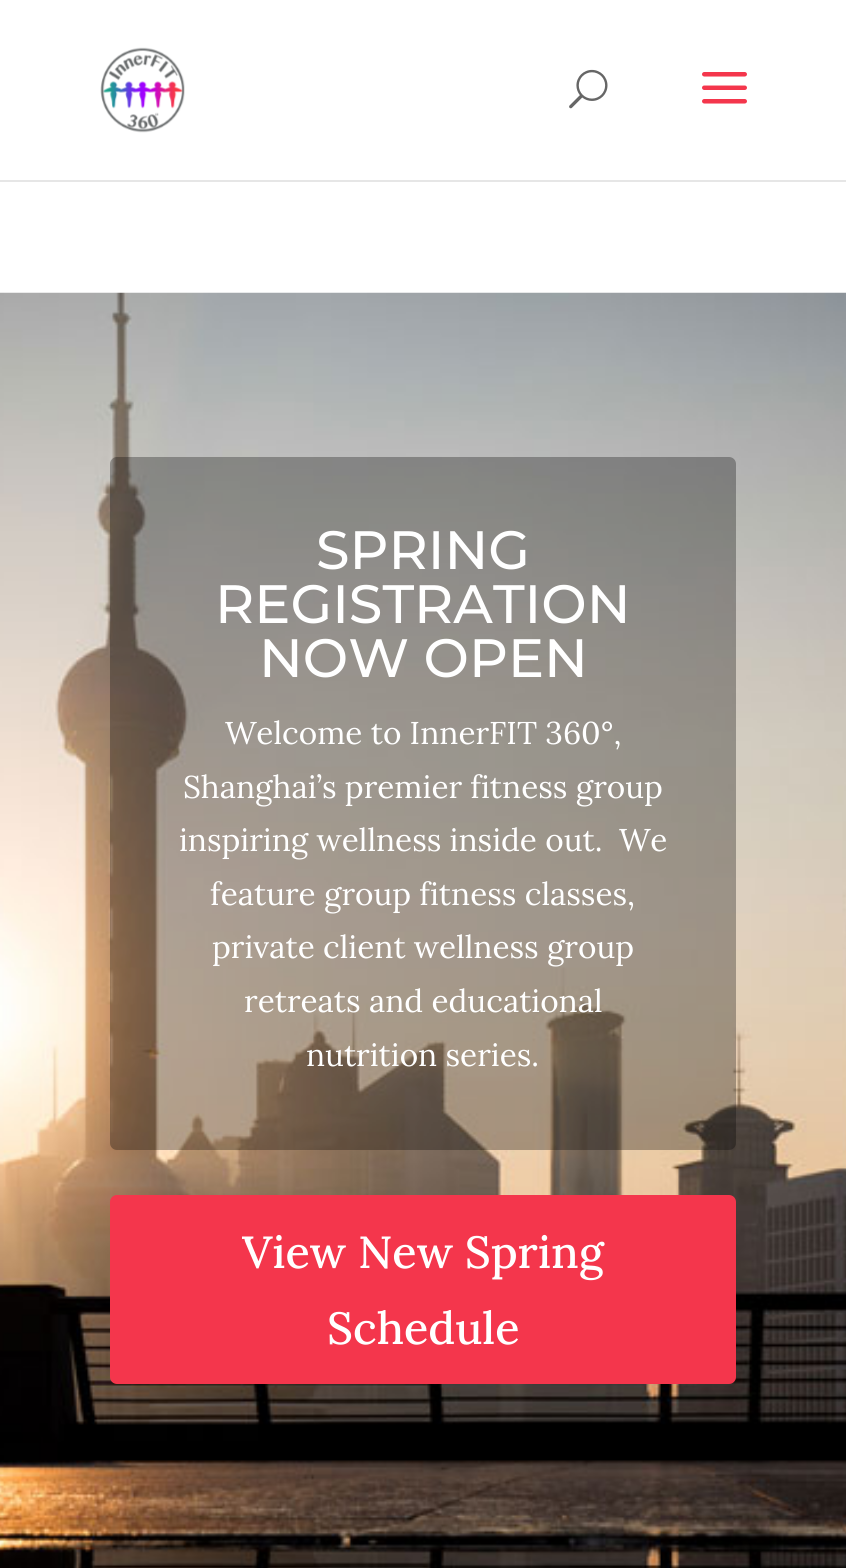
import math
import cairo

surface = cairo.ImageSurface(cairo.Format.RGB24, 846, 1568)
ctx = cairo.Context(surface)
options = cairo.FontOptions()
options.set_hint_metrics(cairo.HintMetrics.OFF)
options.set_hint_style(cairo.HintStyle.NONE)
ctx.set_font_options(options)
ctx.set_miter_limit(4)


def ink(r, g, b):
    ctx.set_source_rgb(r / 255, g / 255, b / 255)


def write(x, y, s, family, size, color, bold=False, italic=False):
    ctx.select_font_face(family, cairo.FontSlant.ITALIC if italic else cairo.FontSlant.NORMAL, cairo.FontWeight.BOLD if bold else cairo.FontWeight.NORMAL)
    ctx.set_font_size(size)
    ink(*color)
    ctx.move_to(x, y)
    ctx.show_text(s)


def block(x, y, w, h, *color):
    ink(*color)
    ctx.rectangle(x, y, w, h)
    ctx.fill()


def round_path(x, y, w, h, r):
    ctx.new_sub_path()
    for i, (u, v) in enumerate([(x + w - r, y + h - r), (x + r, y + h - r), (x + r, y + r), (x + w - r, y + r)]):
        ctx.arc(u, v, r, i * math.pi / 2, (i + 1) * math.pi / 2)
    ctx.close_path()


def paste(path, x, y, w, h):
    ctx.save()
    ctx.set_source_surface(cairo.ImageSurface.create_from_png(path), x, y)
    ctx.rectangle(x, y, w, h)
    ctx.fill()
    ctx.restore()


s1 = dict(family="Montserrat Medium", size=54, color=(255, 255, 255))
s2 = dict(family="Lora", size=31.5, color=(255, 255, 255))
s3 = dict(family="Lora Medium", size=45, color=(255, 255, 255))

ink(255, 255, 255)
ctx.paint()
block(0, 180, 846, 2, 230, 230, 230)
paste("pic1.png", 100, 47, 85, 86)
paste("pic2.png", 569, 69, 39, 40)
paste("pic3.png", 702, 72, 45, 32)
paste("pic4.png", 0, 292, 846, 1276)
ctx.set_source_rgba(0, 0, 0, 0.3)
round_path(110, 457, 626, 693, 7)
ctx.fill()
write(316, 569, "SPRING", **s1)
write(215, 623, "REGISTRATION", **s1)
write(259, 677, "NOW OPEN", **s1)
write(225, 744, "Welcome to InnerFIT 360°,", **s2)
write(183, 798, "Shanghai’s premier fitness group", **s2)
write(179, 851, "inspiring wellness inside out.  We", **s2)
write(210, 905, "feature group fitness classes,", **s2)
write(212, 958, "private client wellness group", **s2)
write(244, 1012, "retreats and educational", **s2)
write(306, 1066, "nutrition series.", **s2)
ink(244, 54, 76)
round_path(112.5, 1197.5, 621, 184, 4.5)
ctx.fill_preserve()
ctx.set_line_width(5)
ctx.stroke()
write(242, 1268, "View New Spring", **s3)
write(327, 1344, "Schedule", **s3)
surface.write_to_png("screenshot.png")
